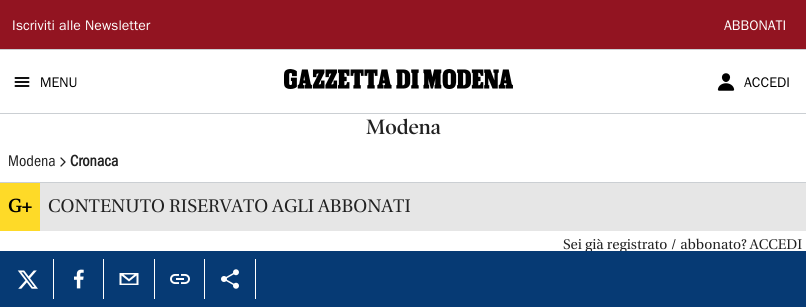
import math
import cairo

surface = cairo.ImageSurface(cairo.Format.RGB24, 806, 307)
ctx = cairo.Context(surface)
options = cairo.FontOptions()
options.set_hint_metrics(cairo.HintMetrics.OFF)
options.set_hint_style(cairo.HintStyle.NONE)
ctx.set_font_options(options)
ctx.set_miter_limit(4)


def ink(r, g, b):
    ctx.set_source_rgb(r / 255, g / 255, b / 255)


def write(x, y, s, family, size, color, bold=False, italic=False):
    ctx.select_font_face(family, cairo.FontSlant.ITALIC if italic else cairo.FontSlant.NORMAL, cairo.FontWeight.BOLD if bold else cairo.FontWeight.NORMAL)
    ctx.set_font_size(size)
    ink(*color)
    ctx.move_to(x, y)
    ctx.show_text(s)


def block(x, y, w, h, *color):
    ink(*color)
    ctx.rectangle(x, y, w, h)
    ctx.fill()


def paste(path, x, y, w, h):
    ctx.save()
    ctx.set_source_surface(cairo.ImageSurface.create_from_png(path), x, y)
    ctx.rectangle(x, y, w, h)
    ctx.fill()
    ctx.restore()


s1 = dict(family="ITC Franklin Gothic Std", size=14, color=(255, 255, 255))
s2 = dict(family="ITC Franklin Gothic Std", size=14, color=(0, 0, 0))
s3 = dict(family="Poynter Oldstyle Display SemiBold", size=21, color=(33, 33, 33))
s4 = dict(family="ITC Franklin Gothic", size=16, color=(33, 33, 33))
s5 = dict(family="ITC Franklin Gothic", size=16, color=(33, 33, 33), bold=True)
s6 = dict(family="Utopia", size=18.25, color=(0, 0, 0), bold=True)
s7 = dict(family="Utopia", size=18.25, color=(33, 33, 33))
s8 = dict(family="Utopia", size=14, color=(33, 33, 33))

ink(255, 255, 255)
ctx.paint()
block(0, 0, 806, 49, 146, 20, 33)
block(0, 49, 806, 1, 203, 207, 211)
write(12, 30, "Iscriviti alle Newsletter", **s1)
write(724, 30, "ABBONATI", **s1)
block(0, 113, 806, 1, 203, 207, 211)
ctx.new_path()
ctx.move_to(15.5, 78)
ctx.line_to(28.5, 78)
ctx.move_to(15.5, 82)
ctx.line_to(28.5, 82)
ctx.move_to(15.5, 86)
ctx.line_to(28.5, 86)
ink(0, 0, 0)
ctx.set_line_width(1.9)
ctx.set_line_cap(cairo.LineCap.ROUND)
ctx.stroke()
write(40, 87, "MENU", **s2)
paste("pic1.png", 284, 69, 229, 20)
paste("pic2.png", 717, 73, 18, 18)
write(744, 87, "ACCEDI", **s2)
write(366, 134, "Modena", **s3)
block(0, 182, 806, 1, 203, 207, 211)
write(8, 166, "Modena", **s4)
ctx.new_path()
ctx.move_to(61, 158)
ctx.line_to(65, 162)
ctx.line_to(61, 166)
ctx.set_line_width(1.3)
ctx.set_line_join(cairo.LineJoin.ROUND)
ctx.stroke()
write(70, 166, "Cronaca", **s5)
block(40, 183, 766, 48, 230, 230, 230)
block(0, 183, 40, 48, 254, 218, 40)
write(8, 212, "G+", **s6)
write(48, 212, "CONTENUTO RISERVATO AGLI ABBONATI", **s7)
write(563, 249, "Sei già registrato / abbonato? ACCEDI", **s8)
block(0, 251, 806, 56, 6, 58, 116)
paste("pic3.png", 17, 270, 21, 19)
block(53, 259, 1, 40, 255, 255, 255)
paste("pic4.png", 74, 269, 10, 20)
block(103, 259, 1, 40, 255, 255, 255)
ctx.new_path()
ctx.move_to(119.5, 273)
ctx.line_to(119.5, 285)
ctx.line_to(138.5, 285)
ctx.line_to(138.5, 273)
ctx.close_path()
ctx.move_to(134.5, 274.5)
ctx.line_to(129, 279)
ctx.line_to(123.5, 274.5)
ctx.close_path()
ctx.move_to(121.5, 283.5)
ctx.line_to(121.5, 275.5)
ctx.line_to(129, 281.5)
ctx.line_to(136.5, 275.5)
ctx.line_to(136.5, 283.5)
ctx.close_path()
ctx.fill()
block(154, 259, 1, 40, 255, 255, 255)
paste("pic5.png", 170, 274, 20, 10)
block(204, 259, 1, 40, 255, 255, 255)
paste("pic6.png", 221, 269, 18, 20)
block(255, 259, 1, 40, 255, 255, 255)
surface.write_to_png("screenshot.png")
